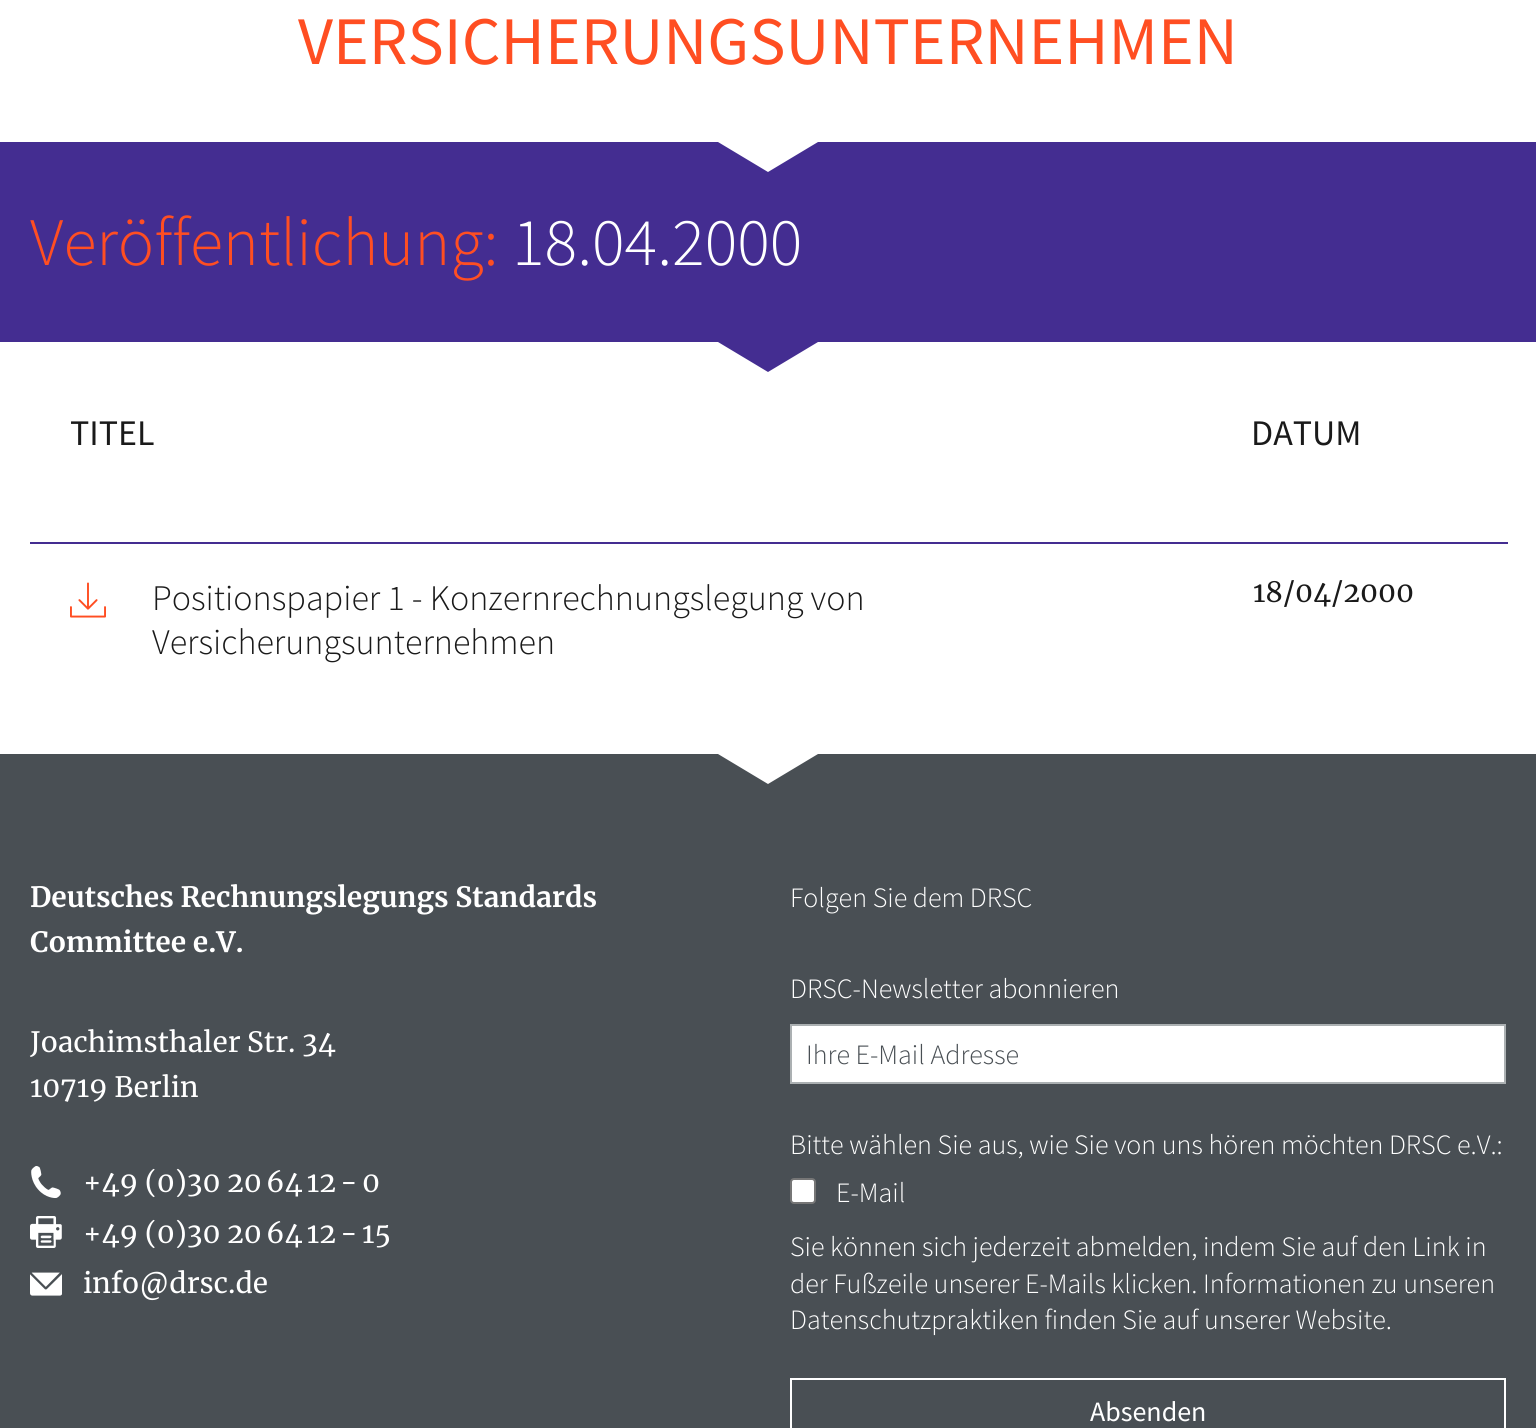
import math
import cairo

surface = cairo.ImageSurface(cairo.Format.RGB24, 1536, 1428)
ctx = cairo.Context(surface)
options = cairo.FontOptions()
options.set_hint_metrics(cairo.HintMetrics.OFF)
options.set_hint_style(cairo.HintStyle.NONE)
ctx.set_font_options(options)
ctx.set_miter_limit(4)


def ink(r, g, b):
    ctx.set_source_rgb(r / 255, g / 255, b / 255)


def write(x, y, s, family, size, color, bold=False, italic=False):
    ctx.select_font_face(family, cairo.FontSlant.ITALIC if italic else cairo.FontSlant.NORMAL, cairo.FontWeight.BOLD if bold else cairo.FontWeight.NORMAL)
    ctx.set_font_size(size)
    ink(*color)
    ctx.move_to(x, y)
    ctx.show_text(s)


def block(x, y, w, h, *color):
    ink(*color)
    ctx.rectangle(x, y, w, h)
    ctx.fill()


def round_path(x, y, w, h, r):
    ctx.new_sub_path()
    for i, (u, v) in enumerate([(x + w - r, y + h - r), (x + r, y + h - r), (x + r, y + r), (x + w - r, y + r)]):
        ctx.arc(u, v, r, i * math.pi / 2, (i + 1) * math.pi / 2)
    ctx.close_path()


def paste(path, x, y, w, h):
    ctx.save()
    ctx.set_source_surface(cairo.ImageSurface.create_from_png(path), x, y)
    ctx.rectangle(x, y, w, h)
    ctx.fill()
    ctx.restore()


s1 = dict(family="Source Sans Pro", size=68, color=(255, 78, 34))
s2 = dict(family="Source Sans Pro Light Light", size=68, color=(255, 78, 34))
s3 = dict(family="Source Sans Pro Light Light", size=68, color=(255, 255, 255))
s4 = dict(family="Source Sans Pro", size=36, color=(26, 26, 26))
s5 = dict(family="Source Sans Pro Light Light", size=36, color=(26, 26, 26))
s6 = dict(family="Merriweather", size=28, color=(26, 26, 26))
s7 = dict(family="Merriweather", size=28, color=(255, 255, 255), bold=True)
s8 = dict(family="Merriweather", size=28, color=(255, 255, 255))
s9 = dict(family="Source Sans Pro Light Light", size=28, color=(255, 255, 255))
s10 = dict(family="Source Sans Pro Light Light", size=28, color=(73, 79, 84))
s11 = dict(family="Source Sans Pro", size=28, color=(255, 255, 255))

ink(255, 255, 255)
ctx.paint()
write(298, 64, "VERSICHERUNGSUNTERNEHMEN", **s1)
block(0, 142, 1536, 200, 68, 45, 145)
ink(255, 255, 255)
ctx.new_path()
ctx.move_to(718, 142)
ctx.line_to(818, 142)
ctx.line_to(768, 172)
ctx.close_path()
ctx.fill()
write(30, 265, "Veröffentlichung:", **s2)
write(512, 265, "18.04.2000", **s3)
ink(68, 45, 145)
ctx.new_path()
ctx.move_to(718, 342)
ctx.line_to(818, 342)
ctx.line_to(768, 372)
ctx.close_path()
ctx.fill()
write(70, 445, "TITEL", **s4)
block(30, 542, 1478, 2, 68, 45, 145)
write(1251, 445, "DATUM", **s4)
paste("pic1.png", 70, 582, 36, 36)
write(152, 610, "Positionspapier 1 - Konzernrechnungslegung von", **s5)
write(152, 654, "Versicherungsunternehmen", **s5)
write(1253, 602, "18/04/2000", **s6)
block(0, 754, 1536, 674, 73, 79, 84)
ink(255, 255, 255)
ctx.new_path()
ctx.move_to(718, 754)
ctx.line_to(818, 754)
ctx.line_to(768, 784)
ctx.close_path()
ctx.fill()
write(30, 907, "Deutsches Rechnungslegungs Standards", **s7)
write(30, 952, "Committee e.V.", **s7)
write(30, 1052, "Joachimsthaler Str. 34", **s8)
write(30, 1097, "10719 Berlin", **s8)
paste("pic2.png", 31, 1166, 30, 32)
write(83, 1192, "+49 (0)30 20 64 12 - 0", **s8)
paste("pic3.png", 30, 1216, 32, 32)
write(83, 1243, "+49 (0)30 20 64 12 - 15", **s8)
paste("pic4.png", 30, 1272, 32, 24)
write(83, 1293, "info@drsc.de", **s8)
write(790, 907, "Folgen Sie dem DRSC", **s9)
write(790, 998, "DRSC-Newsletter abonnieren", **s9)
ctx.rectangle(791, 1025, 714, 58)
ctx.fill_preserve()
ink(171, 176, 178)
ctx.stroke()
write(806, 1064, "Ihre E-Mail Adresse", **s10)
write(790, 1154, "Bitte wählen Sie aus, wie Sie von uns hören möchten DRSC e.V.:", **s9)
round_path(791, 1179, 24, 24, 3)
ctx.fill_preserve()
ink(118, 118, 118)
ctx.stroke()
write(836, 1202, "E-Mail", **s9)
write(790, 1256, "Sie können sich jederzeit abmelden, indem Sie auf den Link in", **s9)
write(790, 1293, "der Fußzeile unserer E-Mails klicken. Informationen zu unseren", **s9)
write(790, 1329, "Datenschutzpraktiken finden Sie auf unserer Website.", **s9)
ctx.rectangle(791, 1379, 714, 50)
ctx.stroke()
write(1090, 1421, "Absenden", **s11)
surface.write_to_png("screenshot.png")
